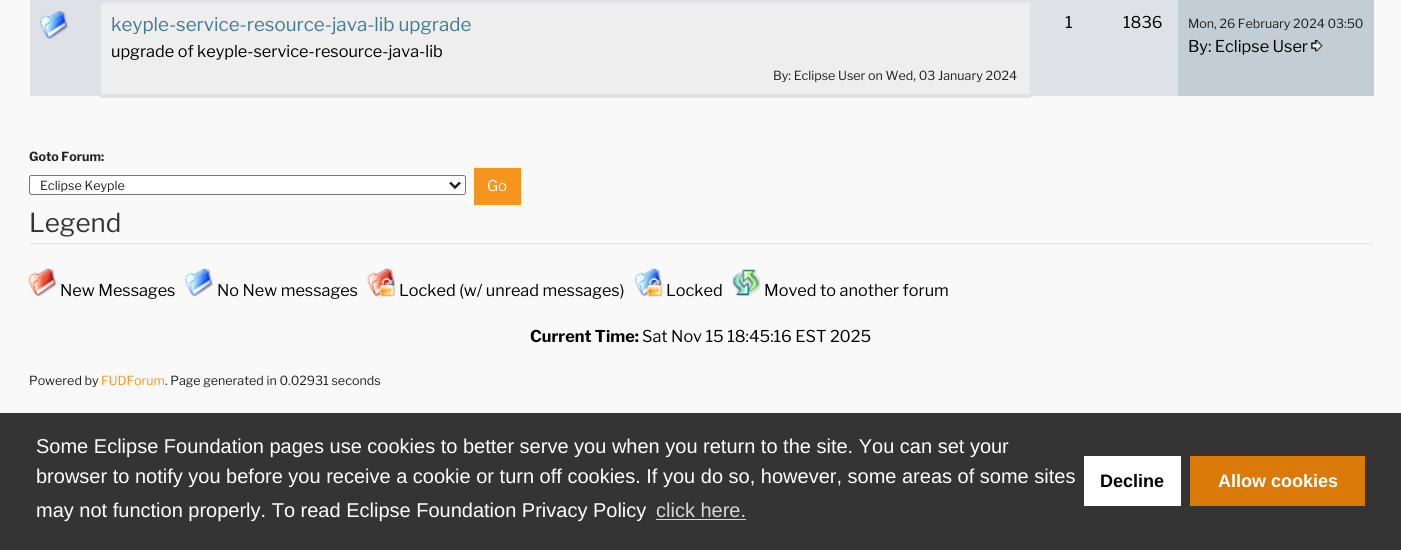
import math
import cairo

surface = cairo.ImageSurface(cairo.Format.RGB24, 1401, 550)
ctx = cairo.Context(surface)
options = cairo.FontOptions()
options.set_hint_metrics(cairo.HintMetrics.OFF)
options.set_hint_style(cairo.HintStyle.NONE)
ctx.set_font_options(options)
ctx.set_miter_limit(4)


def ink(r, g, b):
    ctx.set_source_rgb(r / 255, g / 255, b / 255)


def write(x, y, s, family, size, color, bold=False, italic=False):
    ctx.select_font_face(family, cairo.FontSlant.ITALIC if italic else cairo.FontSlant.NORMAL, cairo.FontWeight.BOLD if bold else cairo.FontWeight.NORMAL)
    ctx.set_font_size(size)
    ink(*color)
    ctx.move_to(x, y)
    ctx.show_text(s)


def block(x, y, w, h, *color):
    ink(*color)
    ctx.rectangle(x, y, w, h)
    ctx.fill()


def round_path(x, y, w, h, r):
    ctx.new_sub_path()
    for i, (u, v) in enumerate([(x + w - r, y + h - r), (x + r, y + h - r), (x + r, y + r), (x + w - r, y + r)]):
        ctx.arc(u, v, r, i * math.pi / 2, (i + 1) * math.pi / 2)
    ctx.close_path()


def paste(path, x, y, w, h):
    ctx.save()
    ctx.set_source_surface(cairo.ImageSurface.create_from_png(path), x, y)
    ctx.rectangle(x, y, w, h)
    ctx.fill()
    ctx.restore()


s1 = dict(family="Libre Franklin", size=18.75, color=(63, 123, 150))
s2 = dict(family="Libre Franklin", size=16.25, color=(0, 0, 0))
s3 = dict(family="Libre Franklin", size=12.5, color=(32, 32, 32))
s4 = dict(family="Libre Franklin", size=12.5, color=(32, 32, 32), bold=True)
s5 = dict(family="Libre Franklin", size=15, color=(255, 255, 255))
s6 = dict(family="Libre Franklin", size=26, color=(51, 51, 51))
s7 = dict(family="Libre Franklin", size=16.25, color=(0, 0, 0), bold=True)
s8 = dict(family="Libre Franklin", size=12.5, color=(247, 148, 30))
s9 = dict(family="Liberation Sans", size=20, color=(255, 255, 255))
s10 = dict(family="Liberation Sans", size=20, color=(215, 214, 214))
s11 = dict(family="Liberation Sans", size=18, color=(0, 0, 0), bold=True)
s12 = dict(family="Liberation Sans", size=18, color=(255, 255, 255), bold=True)

ink(249, 249, 249)
ctx.paint()
block(30, 0, 71, 1, 222, 226, 230)
block(1030, 0, 148, 1, 222, 226, 230)
block(30, 1, 71, 95, 222, 226, 230)
block(1030, 1, 148, 95, 222, 226, 230)
block(100, 0, 931, 3, 222, 226, 230)
block(1178, 0, 196, 96, 194, 205, 214)
paste("pic1.png", 40, 11, 28, 28)
block(101, 3, 929, 91, 238, 238, 238)
block(100, 94, 931, 4, 222, 226, 230)
write(111, 31, "keyple-service-resource-java-lib upgrade", **s1)
write(111, 57, "upgrade of keyple-service-resource-java-lib", **s2)
write(773, 80, "By: Eclipse User on Wed, 03 January 2024", **s3)
write(1065, 28, "1", **s2)
write(1123, 28, "1836", **s2)
write(1188, 28, "Mon, 26 February 2024 03:50", **s3)
write(1188, 52, "By: Eclipse User", **s2)
paste("pic2.png", 1311, 40, 12, 12)
write(29, 161, "Goto Forum:", **s4)
ink(255, 255, 255)
round_path(29.5, 175.5, 436, 19, 2)
ctx.fill_preserve()
ink(118, 118, 118)
ctx.set_line_width(1)
ctx.stroke()
ctx.new_path()
ctx.move_to(450, 182.5)
ctx.line_to(455, 187.5)
ctx.line_to(460, 182.5)
ink(32, 32, 32)
ctx.set_line_width(2.5)
ctx.stroke()
write(40, 190, "Eclipse Keyple", **s3)
block(474, 168, 47, 37, 247, 148, 30)
write(487, 191, "Go", **s5)
block(29, 243, 1344, 1, 229, 229, 229)
write(29, 232, "Legend", **s6)
paste("pic3.png", 28, 268, 29, 29)
write(60, 296, "New Messages", **s2)
paste("pic4.png", 185, 268, 28, 29)
write(217, 296, "No New messages", **s2)
paste("pic5.png", 367, 268, 28, 29)
write(399, 296, "Locked (w/ unread messages)", **s2)
paste("pic6.png", 635, 268, 28, 29)
write(666, 296, "Locked", **s2)
paste("pic7.png", 732, 268, 28, 29)
write(764, 296, "Moved to another forum", **s2)
write(530, 342, "Current Time:", **s7)
write(642, 342, "Sat Nov 15 18:45:16 EST 2025", **s2)
write(29, 385, "Powered by", **s3)
write(101, 385, "FUDForum", **s8)
write(165, 385, ". Page generated in 0.02931 seconds", **s3)
block(0, 413, 1401, 137, 53, 52, 52)
write(36, 453, "Some Eclipse Foundation pages use cookies to better serve you when you return to the site. You can set your", **s9)
write(36, 483, "browser to notify you before you receive a cookie or turn off cookies. If you do so, however, some areas of some sites", **s9)
write(36, 517, "may not function properly. To read Eclipse Foundation Privacy Policy", **s9)
write(656, 517, "click here.", **s10)
block(656, 519, 90, 1, 215, 214, 214)
block(1084, 456, 97, 50, 255, 255, 255)
write(1100, 487, "Decline", **s11)
block(1190, 456, 175, 50, 218, 122, 8)
write(1218, 487, "Allow cookies", **s12)
surface.write_to_png("screenshot.png")
